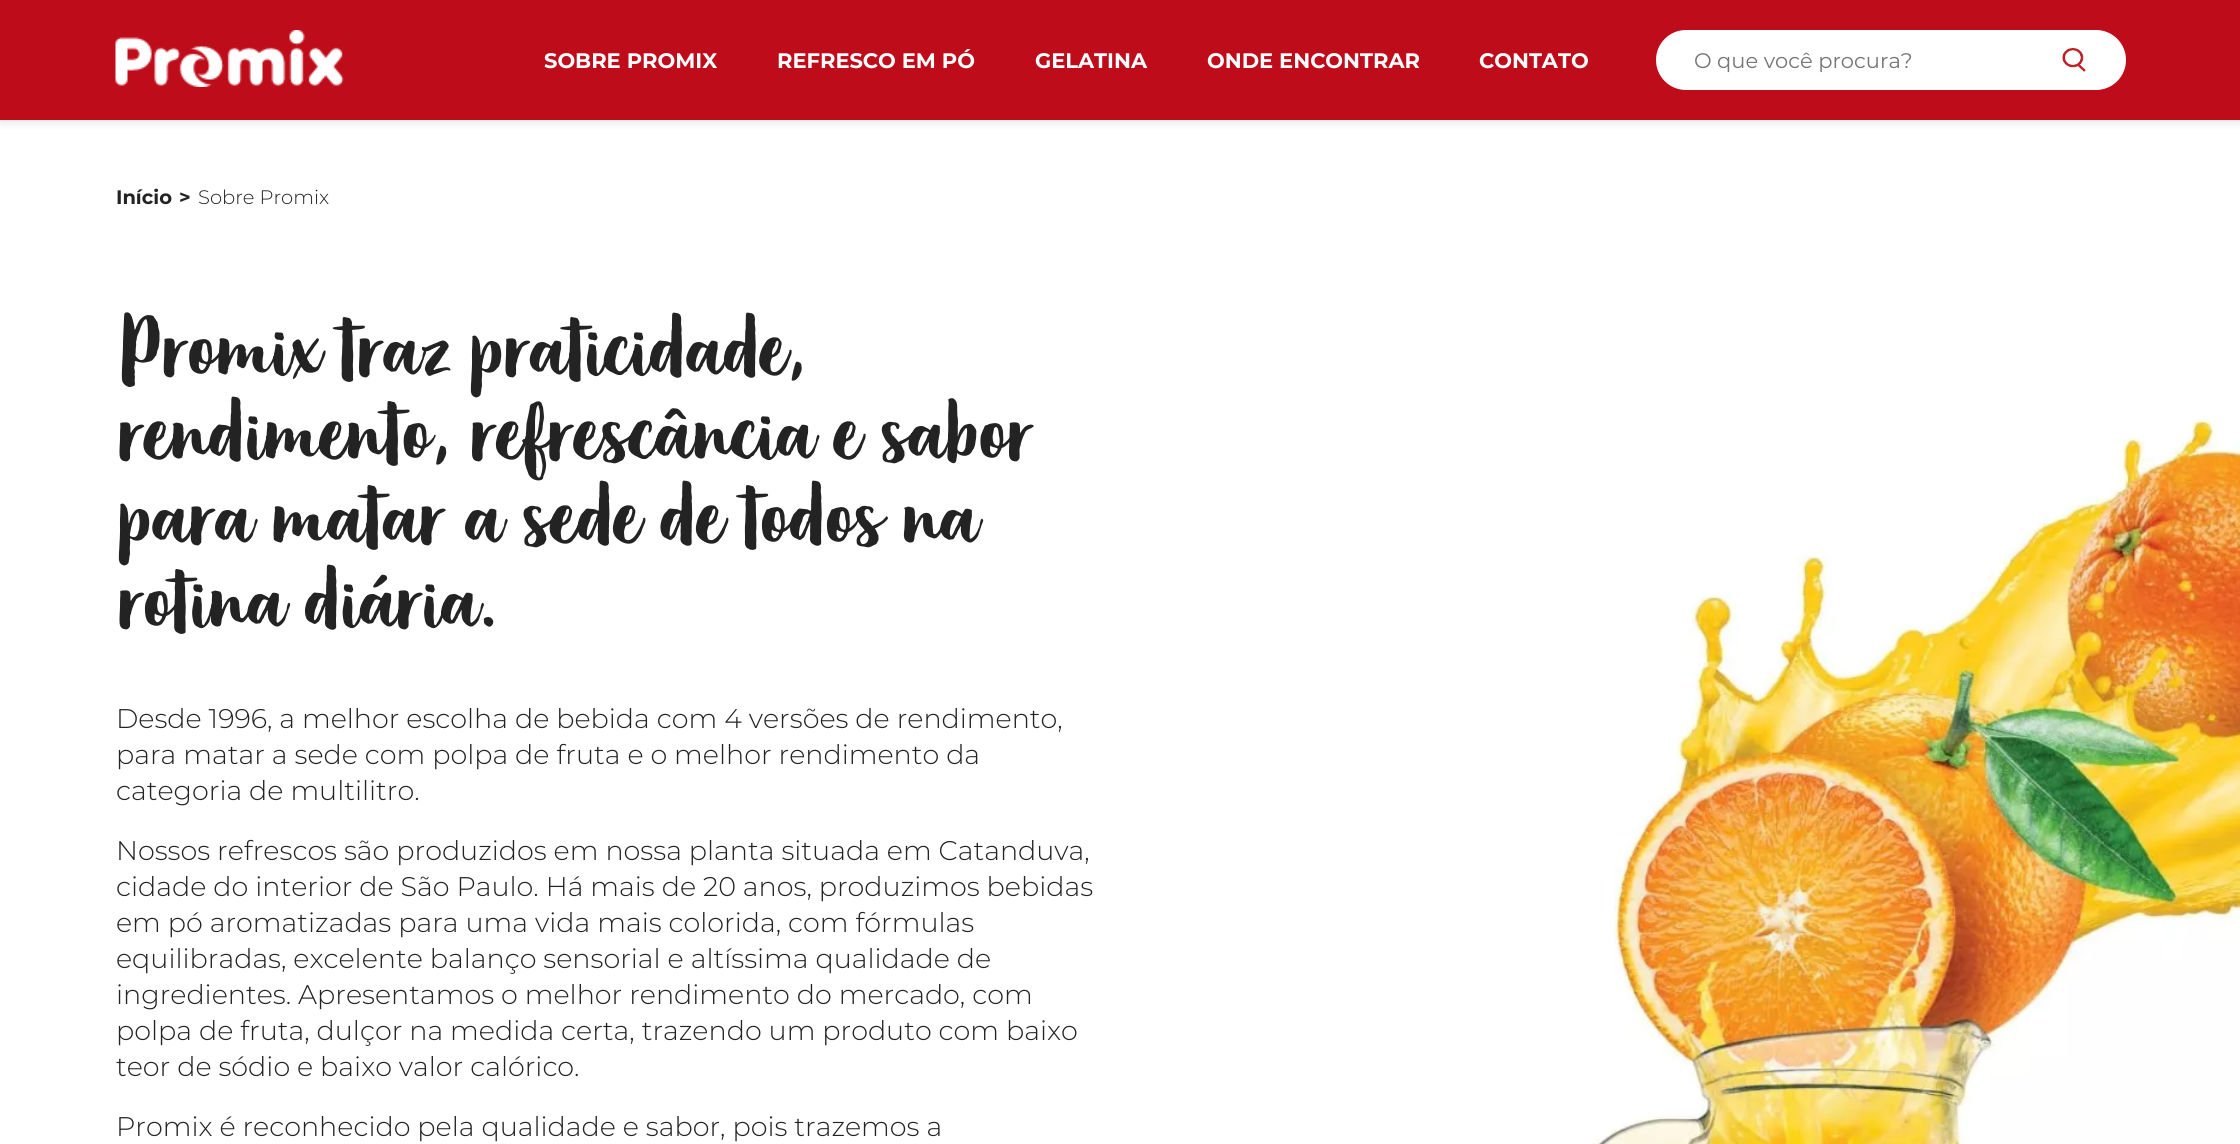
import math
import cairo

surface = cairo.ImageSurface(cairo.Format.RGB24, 2240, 1144)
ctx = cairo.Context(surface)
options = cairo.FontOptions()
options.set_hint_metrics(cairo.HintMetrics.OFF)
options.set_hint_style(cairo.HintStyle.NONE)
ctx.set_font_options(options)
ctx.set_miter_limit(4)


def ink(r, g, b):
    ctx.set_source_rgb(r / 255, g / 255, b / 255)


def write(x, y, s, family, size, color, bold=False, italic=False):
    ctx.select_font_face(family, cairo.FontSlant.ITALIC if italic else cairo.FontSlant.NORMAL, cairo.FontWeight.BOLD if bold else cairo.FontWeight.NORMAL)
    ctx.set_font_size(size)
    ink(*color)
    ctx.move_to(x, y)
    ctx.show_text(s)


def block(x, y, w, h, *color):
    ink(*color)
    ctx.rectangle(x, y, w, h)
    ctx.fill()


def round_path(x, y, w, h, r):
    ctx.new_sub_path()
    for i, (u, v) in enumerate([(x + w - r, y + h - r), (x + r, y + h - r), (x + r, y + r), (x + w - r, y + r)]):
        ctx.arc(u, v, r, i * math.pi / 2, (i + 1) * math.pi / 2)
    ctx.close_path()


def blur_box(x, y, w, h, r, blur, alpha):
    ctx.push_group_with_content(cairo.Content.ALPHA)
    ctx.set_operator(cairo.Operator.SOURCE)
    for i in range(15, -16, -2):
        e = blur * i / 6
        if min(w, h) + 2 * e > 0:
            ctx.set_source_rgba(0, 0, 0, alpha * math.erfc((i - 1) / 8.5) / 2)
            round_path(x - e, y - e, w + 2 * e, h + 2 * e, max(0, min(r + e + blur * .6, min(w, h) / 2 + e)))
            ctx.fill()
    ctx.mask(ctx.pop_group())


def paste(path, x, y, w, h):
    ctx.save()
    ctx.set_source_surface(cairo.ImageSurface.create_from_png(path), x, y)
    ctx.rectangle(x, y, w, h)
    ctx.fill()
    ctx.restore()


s1 = dict(family="Montserrat", size=21, color=(255, 255, 255), bold=True)
s2 = dict(family="Montserrat", size=21, color=(117, 117, 117))
s3 = dict(family="Montserrat", size=19.5, color=(35, 35, 35), bold=True)
s4 = dict(family="Montserrat Light", size=19.5, color=(35, 35, 35))
s5 = dict(family="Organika", size=90, color=(35, 35, 35))
s6 = dict(family="Montserrat Light", size=27, color=(35, 35, 35))

ink(255, 255, 255)
ctx.paint()
ink(0, 0, 0)
blur_box(0, 3, 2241, 120, 0, 4, 0.1)
block(0, 0, 2240, 120, 191, 12, 26)
paste("pic1.png", 115, 30, 229, 57)
write(544, 68, "SOBRE PROMIX", **s1)
write(777, 68, "REFRESCO EM PÓ", **s1)
write(1035, 68, "GELATINA", **s1)
write(1207, 68, "ONDE ENCONTRAR", **s1)
write(1479, 68, "CONTATO", **s1)
round_path(1656, 30, 470, 60, 30)
ctx.fill()
write(1694, 68, "O que você procura?", **s2)
paste("pic2.png", 2062, 48, 24, 24)
write(116, 204, "Início", **s3)
write(179, 204, ">", **s3)
write(198, 204, "Sobre Promix", **s4)
write(116, 374, "Promix traz praticidade,", **s5)
write(116, 458, "rendimento, refrescância e sabor", **s5)
write(116, 542, "para matar a sede de todos na", **s5)
write(116, 626, "rotina diária.", **s5)
write(116, 728, "Desde 1996, a melhor escolha de bebida com 4 versões de rendimento,", **s6)
write(116, 764, "para matar a sede com polpa de fruta e o melhor rendimento da", **s6)
write(116, 800, "categoria de multilitro.", **s6)
write(116, 860, "Nossos refrescos são produzidos em nossa planta situada em Catanduva,", **s6)
write(116, 896, "cidade do interior de São Paulo. Há mais de 20 anos, produzimos bebidas", **s6)
write(116, 932, "em pó aromatizadas para uma vida mais colorida, com fórmulas", **s6)
write(116, 968, "equilibradas, excelente balanço sensorial e altíssima qualidade de", **s6)
write(116, 1004, "ingredientes. Apresentamos o melhor rendimento do mercado, com", **s6)
write(116, 1040, "polpa de fruta, dulçor na medida certa, trazendo um produto com baixo", **s6)
write(116, 1076, "teor de sódio e baixo valor calórico.", **s6)
write(116, 1136, "Promix é reconhecido pela qualidade e sabor, pois trazemos a", **s6)
paste("pic3.png", 1592, 418, 648, 726)
surface.write_to_png("screenshot.png")
